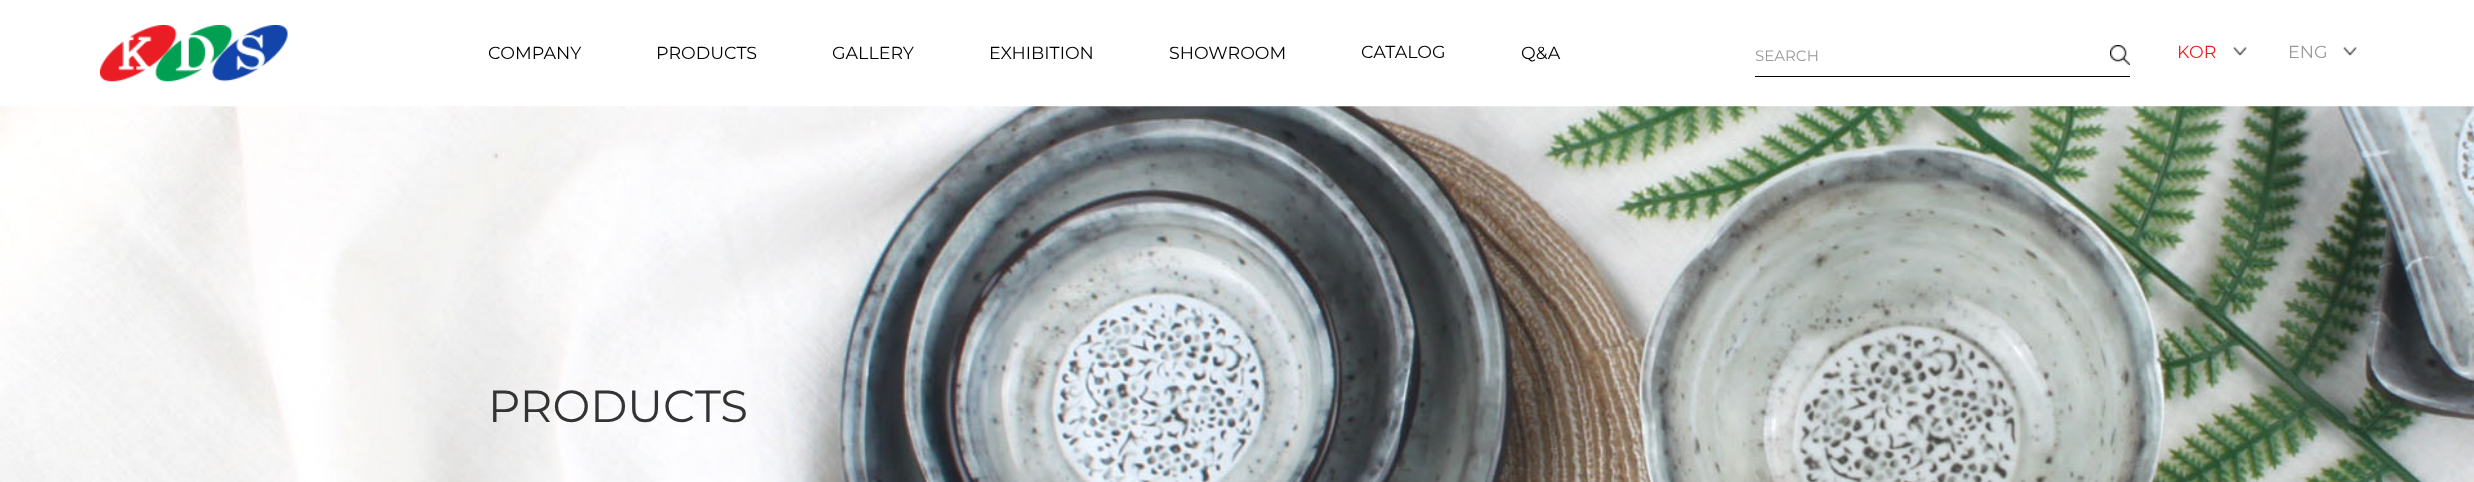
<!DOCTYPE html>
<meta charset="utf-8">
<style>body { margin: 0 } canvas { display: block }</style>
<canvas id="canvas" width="2474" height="482"></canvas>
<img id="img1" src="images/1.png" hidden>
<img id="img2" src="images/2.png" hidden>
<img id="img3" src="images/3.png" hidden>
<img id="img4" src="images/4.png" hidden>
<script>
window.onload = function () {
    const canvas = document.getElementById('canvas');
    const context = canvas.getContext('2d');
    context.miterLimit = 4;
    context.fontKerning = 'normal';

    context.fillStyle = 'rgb(255, 255, 255)';
    context.fillRect(0, 0, 2474, 482);
    context.drawImage(document.getElementById('img1'), 100, 25, 188, 57);
    context.fillStyle = 'rgb(0, 0, 0)';
    context.fillRect(1755, 76, 375, 1);
    context.drawImage(document.getElementById('img2'), 2110, 45, 20, 20);
    context.drawImage(document.getElementById('img3'), 2233, 47, 14, 9);
    context.drawImage(document.getElementById('img3'), 2343, 47, 14, 9);
    context.drawImage(document.getElementById('img4'), 0, 106, 2474, 376);
    context.font = '17.5px Montserrat';
    context.fillText('COMPANY', 488, 59);
    context.fillText('PRODUCTS', 656, 59);
    context.fillText('GALLERY', 832, 59);
    context.fillText('EXHIBITION', 989, 59);
    context.fillText('SHOWROOM', 1169, 59);
    context.fillText('CATALOG', 1361, 58);
    context.fillText('Q&A', 1521, 59);
    context.font = '15px Montserrat';
    context.fillStyle = 'rgb(153, 153, 153)';
    context.fillText('SEARCH', 1755, 61);
    context.font = '17.5px Montserrat';
    context.fillStyle = 'rgb(236, 29, 37)';
    context.fillText('KOR', 2177, 58);
    context.fillStyle = 'rgb(153, 153, 153)';
    context.fillText('ENG', 2288, 58);
    context.font = '45px Montserrat';
    context.fillStyle = 'rgb(51, 51, 51)';
    context.fillText('PRODUCTS', 488, 422);
};
</script>
